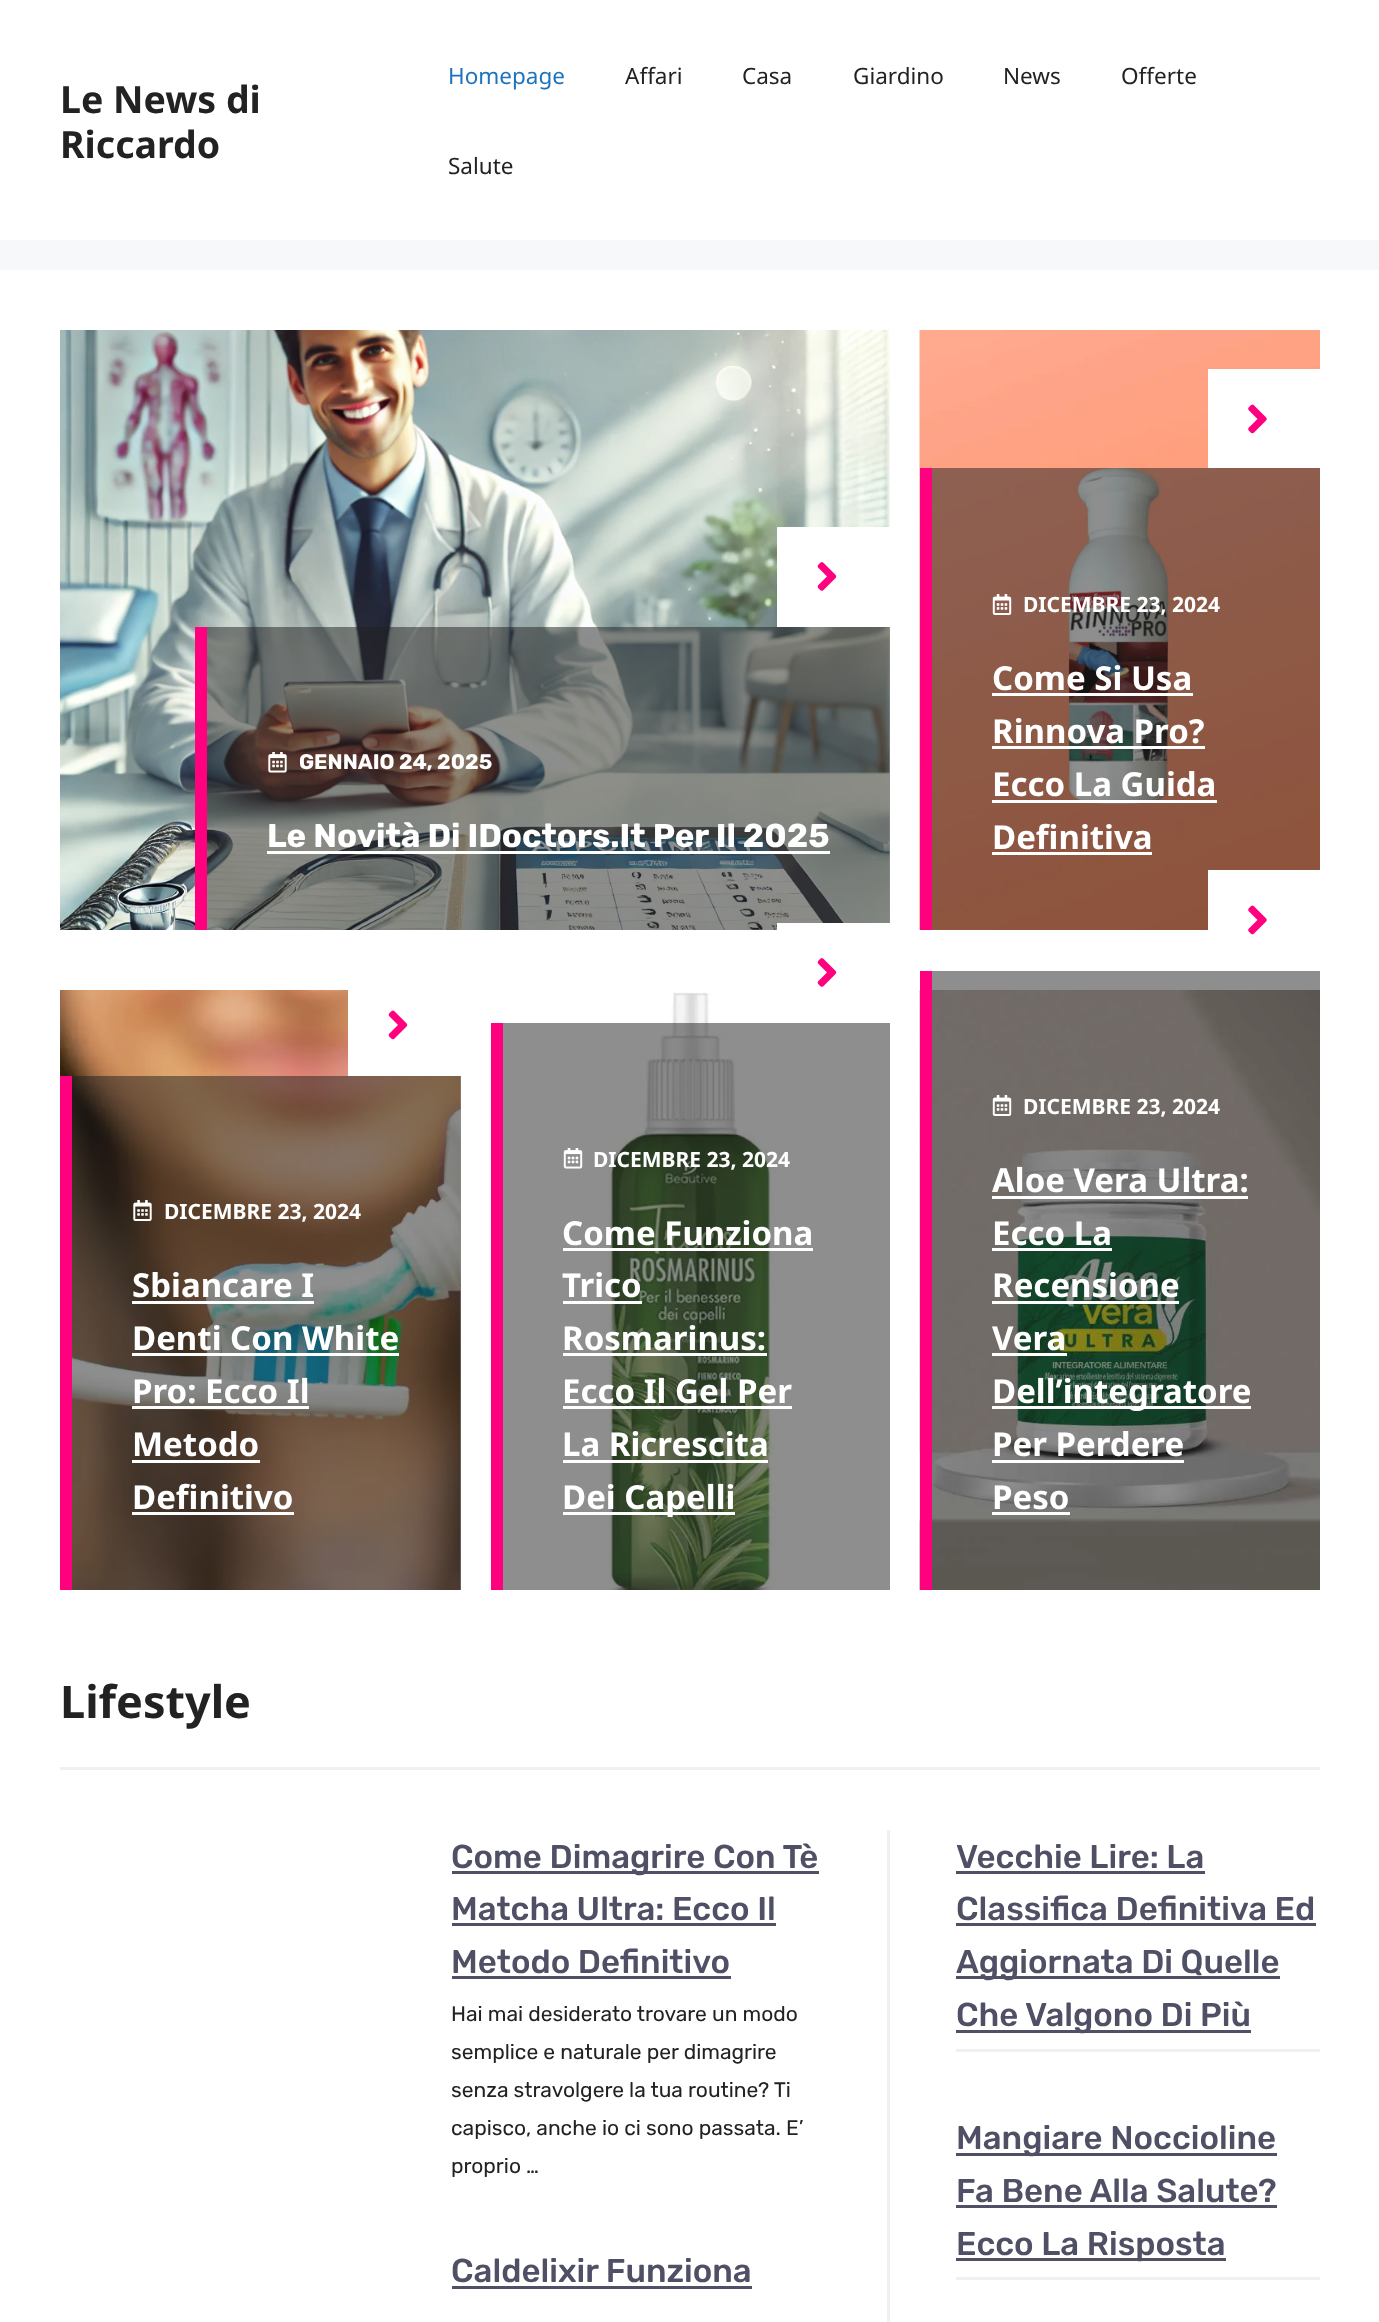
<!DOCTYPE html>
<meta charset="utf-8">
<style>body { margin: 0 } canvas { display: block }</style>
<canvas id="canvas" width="1379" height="2322"></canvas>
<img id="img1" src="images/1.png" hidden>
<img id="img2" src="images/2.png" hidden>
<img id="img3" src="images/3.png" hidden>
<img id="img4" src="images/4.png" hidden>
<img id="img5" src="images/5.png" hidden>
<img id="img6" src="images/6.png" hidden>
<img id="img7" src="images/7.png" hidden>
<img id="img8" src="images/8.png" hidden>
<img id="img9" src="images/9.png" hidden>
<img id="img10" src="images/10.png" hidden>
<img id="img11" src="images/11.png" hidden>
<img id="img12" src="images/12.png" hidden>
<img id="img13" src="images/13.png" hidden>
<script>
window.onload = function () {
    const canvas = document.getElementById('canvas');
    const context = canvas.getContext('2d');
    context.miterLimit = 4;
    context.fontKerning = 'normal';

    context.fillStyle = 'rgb(247, 248, 249)';
    context.fillRect(0, 0, 1379, 2322);
    context.fillStyle = 'rgb(255, 255, 255)';
    context.fillRect(0, 0, 1379, 240);
    context.fillRect(0, 270, 1379, 2052);
    context.fillStyle = 'rgb(142, 142, 142)';
    context.fillRect(932, 971, 388, 19);
    context.fillRect(503, 1023, 387, 567);
    context.drawImage(document.getElementById('img1'), 60, 330, 830, 600);
    context.fillStyle = 'rgb(255, 255, 255)';
    context.fillRect(777, 527, 113, 100);
    context.drawImage(document.getElementById('img2'), 817, 562, 20, 29);
    context.fillStyle = 'rgba(33, 33, 33, 0.51)';
    context.fillRect(207, 627, 683, 303);
    context.fillStyle = 'rgb(255, 0, 126)';
    context.fillRect(195, 627, 12, 303);
    context.drawImage(document.getElementById('img3'), 268, 752, 19, 21);
    context.fillStyle = 'rgb(255, 255, 255)';
    context.fillRect(267, 851, 563, 3);
    context.drawImage(document.getElementById('img4'), 919, 330, 401, 600);
    context.fillRect(1208, 369, 112, 99);
    context.drawImage(document.getElementById('img5'), 1248, 404, 19, 30);
    context.fillStyle = 'rgba(33, 33, 33, 0.51)';
    context.fillRect(932, 468, 388, 462);
    context.fillStyle = 'rgb(255, 0, 126)';
    context.fillRect(920, 468, 12, 462);
    context.drawImage(document.getElementById('img6'), 992, 594, 20, 21);
    context.fillStyle = 'rgb(255, 255, 255)';
    context.fillRect(992, 693, 201, 3);
    context.fillRect(992, 746, 213, 3);
    context.fillRect(992, 800, 225, 3);
    context.fillRect(992, 852, 160, 3);
    context.drawImage(document.getElementById('img7'), 60, 990, 401, 600);
    context.fillRect(348, 990, 113, 86);
    context.drawImage(document.getElementById('img8'), 388, 1010, 20, 30);
    context.fillStyle = 'rgba(33, 33, 33, 0.51)';
    context.fillRect(72, 1076, 389, 514);
    context.fillStyle = 'rgb(255, 0, 126)';
    context.fillRect(60, 1076, 12, 514);
    context.drawImage(document.getElementById('img9'), 133, 1200, 19, 21);
    context.fillStyle = 'rgb(255, 255, 255)';
    context.fillRect(132, 1301, 182, 3);
    context.fillRect(132, 1353, 267, 3);
    context.fillRect(132, 1406, 177, 3);
    context.fillRect(132, 1460, 128, 3);
    context.fillRect(132, 1512, 162, 3);
    context.drawImage(document.getElementById('img10'), 608, 992, 168, 598);
    context.fillRect(777, 923, 113, 7);
    context.drawImage(document.getElementById('img2'), 817, 958, 20, 29);
    context.fillStyle = 'rgb(255, 0, 126)';
    context.fillRect(491, 1023, 12, 567);
    context.drawImage(document.getElementById('img11'), 563, 1148, 20, 21);
    context.fillStyle = 'rgb(255, 255, 255)';
    context.fillRect(563, 1248, 250, 3);
    context.fillRect(563, 1301, 79, 3);
    context.fillRect(563, 1353, 204, 3);
    context.fillRect(563, 1406, 229, 3);
    context.fillRect(563, 1460, 205, 3);
    context.fillRect(563, 1512, 172, 3);
    context.drawImage(document.getElementById('img12'), 919, 990, 401, 600);
    context.fillRect(1208, 870, 112, 60);
    context.drawImage(document.getElementById('img5'), 1248, 905, 19, 30);
    context.fillStyle = 'rgb(255, 0, 126)';
    context.fillRect(920, 971, 12, 619);
    context.drawImage(document.getElementById('img13'), 992, 1095, 20, 21);
    context.fillStyle = 'rgb(255, 255, 255)';
    context.fillRect(992, 1196, 256, 3);
    context.fillRect(992, 1248, 120, 3);
    context.fillRect(992, 1301, 187, 3);
    context.fillRect(992, 1353, 75, 3);
    context.fillRect(992, 1406, 259, 3);
    context.fillRect(992, 1460, 192, 3);
    context.fillRect(992, 1512, 78, 3);
    context.fillStyle = 'rgb(240, 240, 240)';
    context.fillRect(60, 1767, 1260, 3);
    context.fillRect(887, 1830, 3, 492);
    context.fillStyle = 'rgb(79, 79, 101)';
    context.fillRect(452, 1871, 367, 3);
    context.fillRect(452, 1923, 324, 3);
    context.fillRect(452, 1976, 279, 3);
    context.fillRect(452, 2286, 300, 3);
    context.fillStyle = 'rgb(240, 240, 240)';
    context.fillRect(956, 2049, 364, 3);
    context.fillStyle = 'rgb(79, 79, 101)';
    context.fillRect(956, 1871, 249, 3);
    context.fillRect(956, 1923, 360, 3);
    context.fillRect(956, 1976, 324, 3);
    context.fillRect(956, 2030, 295, 3);
    context.fillStyle = 'rgb(240, 240, 240)';
    context.fillRect(956, 2277, 364, 3);
    context.fillStyle = 'rgb(79, 79, 101)';
    context.fillRect(956, 2153, 321, 3);
    context.fillRect(956, 2205, 321, 3);
    context.fillRect(956, 2258, 270, 3);
    context.font = 'bold 37.5px Noto Sans';
    context.fillStyle = 'rgb(34, 34, 34)';
    context.fillText('Le News di', 60, 113);
    context.fillText('Riccardo', 60, 158);
    context.font = '22.5px Noto Sans';
    context.fillStyle = 'rgb(30, 115, 190)';
    context.fillText('Homepage', 448, 84);
    context.fillStyle = 'rgb(34, 34, 34)';
    context.fillText('Affari', 625, 84);
    context.fillText('Casa', 742, 84);
    context.fillText('Giardino', 853, 84);
    context.fillText('News', 1003, 84);
    context.fillText('Offerte', 1121, 84);
    context.fillText('Salute', 448, 174);
    context.font = 'bold 21px Rubik';
    context.fillStyle = 'rgb(255, 255, 255)';
    context.fillText('GENNAIO 24, 2025', 299, 769);
    context.font = 'bold 33px Rubik';
    context.fillText('Le Novità Di IDoctors.It Per Il 2025', 267, 847);
    context.font = 'bold 21px Noto Sans';
    context.fillText('DICEMBRE 23, 2024', 1023, 612);
    context.font = 'bold 33px Noto Sans';
    context.fillText('Come Si Usa', 992, 690);
    context.fillText('Rinnova Pro?', 992, 743);
    context.fillText('Ecco La Guida', 992, 796);
    context.fillText('Definitiva', 992, 849);
    context.font = 'bold 21px Noto Sans';
    context.fillText('DICEMBRE 23, 2024', 164, 1219);
    context.font = 'bold 33px Noto Sans';
    context.fillText('Sbiancare I', 132, 1297);
    context.fillText('Denti Con White', 132, 1350);
    context.fillText('Pro: Ecco Il', 132, 1403);
    context.fillText('Metodo', 132, 1456);
    context.fillText('Definitivo', 132, 1509);
    context.font = 'bold 21px Noto Sans';
    context.fillText('DICEMBRE 23, 2024', 593, 1167);
    context.font = 'bold 33px Noto Sans';
    context.fillText('Come Funziona', 562, 1245);
    context.fillText('Trico', 562, 1297);
    context.fillText('Rosmarinus:', 562, 1350);
    context.fillText('Ecco Il Gel Per', 562, 1403);
    context.fillText('La Ricrescita', 562, 1456);
    context.fillText('Dei Capelli', 562, 1509);
    context.font = 'bold 21px Noto Sans';
    context.fillText('DICEMBRE 23, 2024', 1023, 1114);
    context.font = 'bold 33px Noto Sans';
    context.fillText('Aloe Vera Ultra:', 992, 1192);
    context.fillText('Ecco La', 992, 1245);
    context.fillText('Recensione', 992, 1297);
    context.fillText('Vera', 992, 1350);
    context.fillText('Dell’integratore', 992, 1403);
    context.fillText('Per Perdere', 992, 1456);
    context.fillText('Peso', 992, 1509);
    context.font = 'bold 45px Noto Sans';
    context.fillStyle = 'rgb(34, 34, 34)';
    context.fillText('Lifestyle', 60, 1718);
    context.font = '500 33px Rubik';
    context.fillStyle = 'rgb(79, 79, 101)';
    context.fillText('Come Dimagrire Con Tè', 451, 1868);
    context.fillText('Matcha Ultra: Ecco Il', 451, 1920);
    context.fillText('Metodo Definitivo', 451, 1973);
    context.font = '21px Rubik';
    context.fillStyle = 'rgb(34, 34, 34)';
    context.fillText('Hai mai desiderato trovare un modo', 451, 2021);
    context.fillText('semplice e naturale per dimagrire', 451, 2059);
    context.fillText('senza stravolgere la tua routine? Ti', 451, 2097);
    context.fillText('capisco, anche io ci sono passata. E’', 451, 2135);
    context.fillText('proprio …', 451, 2173);
    context.font = '500 33px Rubik';
    context.fillStyle = 'rgb(79, 79, 101)';
    context.fillText('Caldelixir Funziona', 451, 2282);
    context.fillText('Vecchie Lire: La', 956, 1868);
    context.fillText('Classifica Definitiva Ed', 956, 1920);
    context.fillText('Aggiornata Di Quelle', 956, 1973);
    context.fillText('Che Valgono Di Più', 956, 2026);
    context.fillText('Mangiare Noccioline', 956, 2149);
    context.fillText('Fa Bene Alla Salute?', 956, 2202);
    context.fillText('Ecco La Risposta', 956, 2255);
};
</script>
